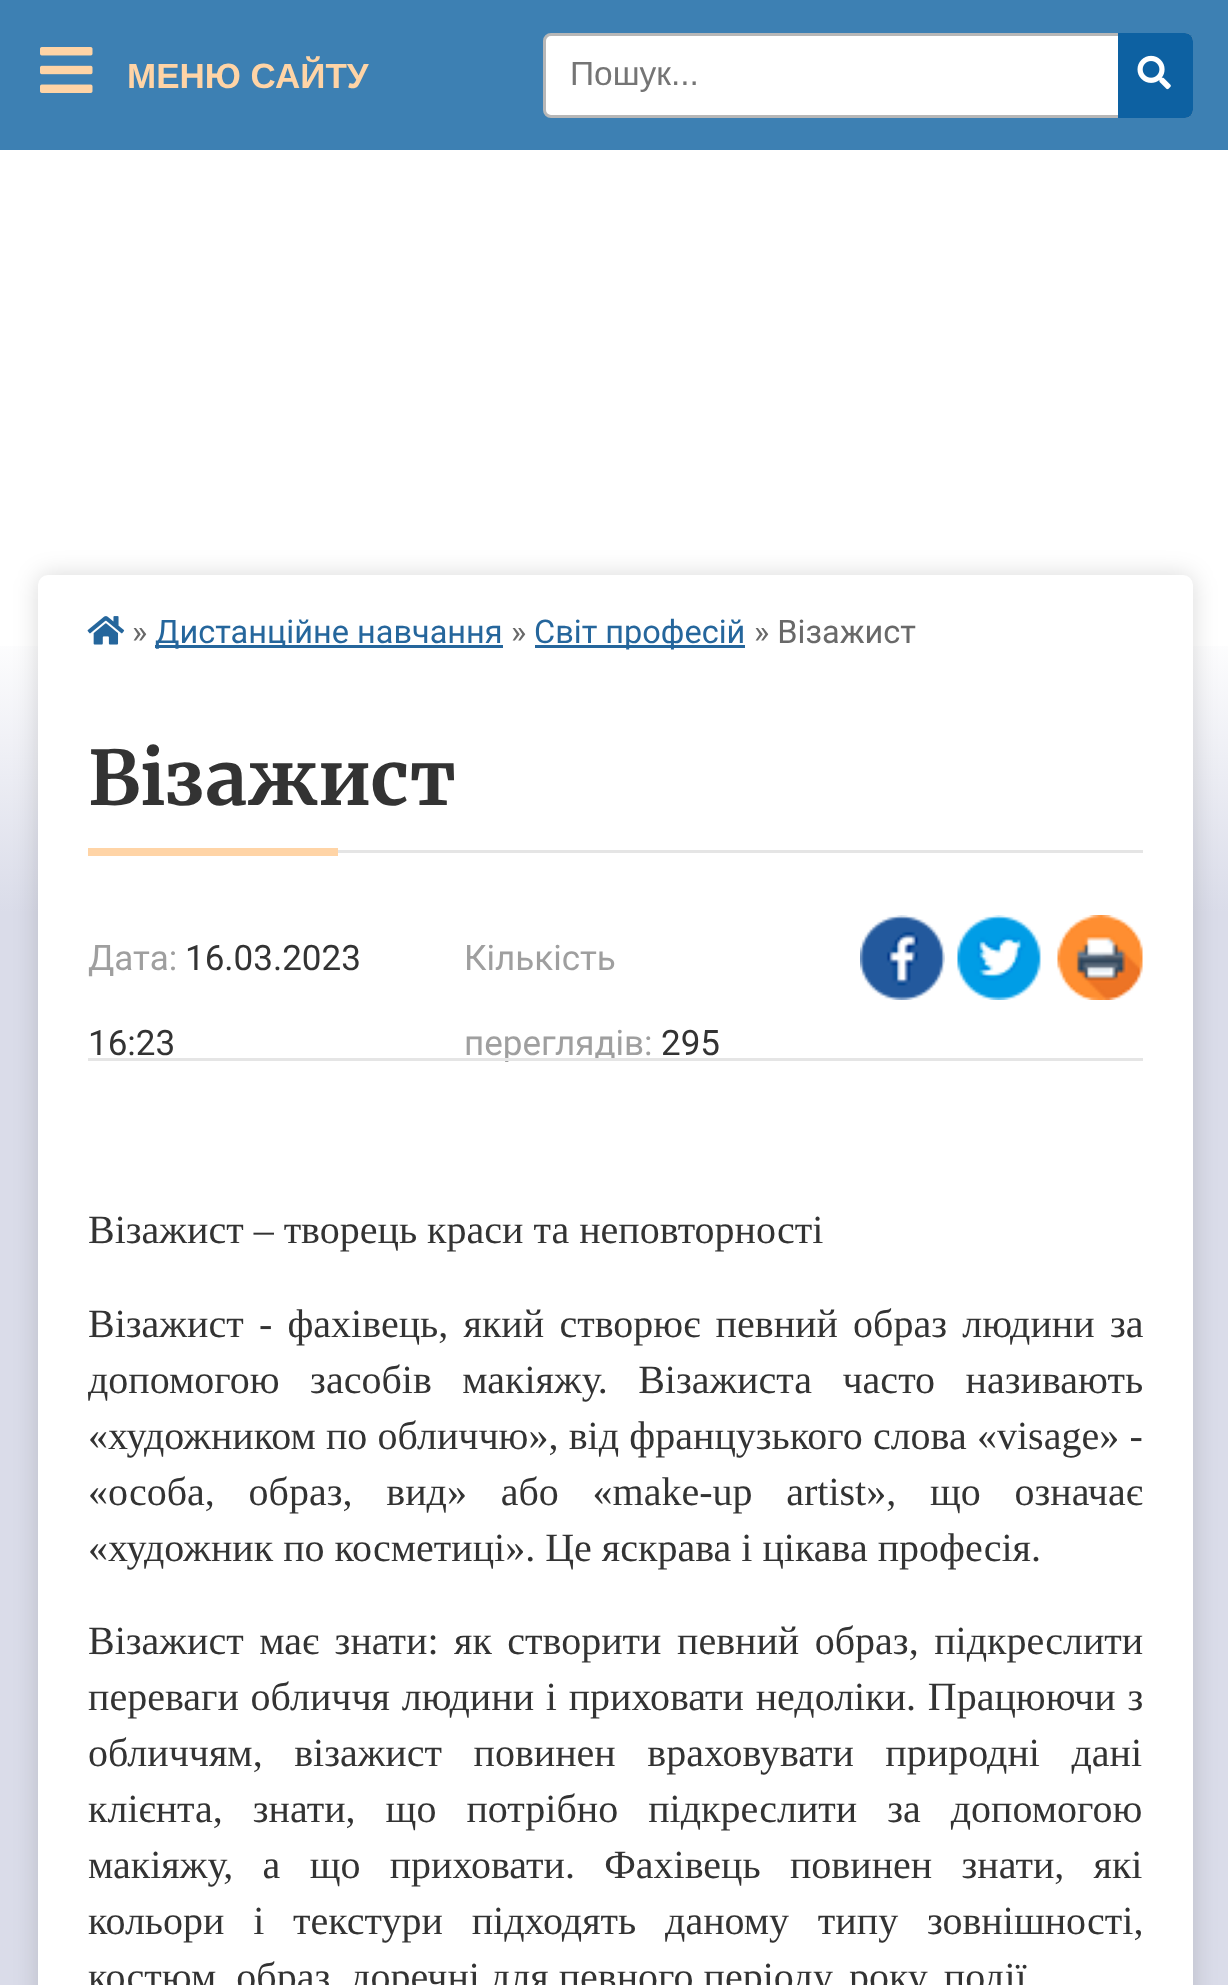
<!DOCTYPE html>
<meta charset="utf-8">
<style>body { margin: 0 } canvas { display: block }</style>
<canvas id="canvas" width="1228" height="1985"></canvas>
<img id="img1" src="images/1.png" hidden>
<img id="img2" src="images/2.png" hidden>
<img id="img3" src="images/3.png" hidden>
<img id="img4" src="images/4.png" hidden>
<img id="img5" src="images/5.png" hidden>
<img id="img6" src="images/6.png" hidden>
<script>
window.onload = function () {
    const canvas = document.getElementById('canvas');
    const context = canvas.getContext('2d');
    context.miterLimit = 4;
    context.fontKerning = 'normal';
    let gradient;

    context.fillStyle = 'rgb(255, 255, 255)';
    context.fillRect(0, 0, 1228, 1985);
    gradient = context.createLinearGradient(615, 150, 615, 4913);
    gradient.addColorStop(0.1, 'rgb(255, 255, 255)');
    gradient.addColorStop(0.16, 'rgb(218, 220, 233)');
    context.fillStyle = gradient;
    context.fillRect(0, 646, 1228, 1339);
    context.fillStyle = 'rgba(0, 0, 0, 0.15)';
    context.filter = 'blur(12.5px)';
    context.beginPath();
    context.roundRect(38, 575, 1155, 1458, 10);
    context.fill();
    context.filter = 'none';
    context.fillStyle = 'rgb(255, 255, 255)';
    context.beginPath();
    context.roundRect(38, 575, 1155, 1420, 10);
    context.fill();
    context.fillStyle = 'rgb(61, 128, 179)';
    context.fillRect(0, 0, 1228, 150);
    context.drawImage(document.getElementById('img1'), 40, 47, 53, 46);
    context.drawImage(document.getElementById('img2'), 87, 616, 38, 29);
    context.fillStyle = 'rgb(37, 102, 156)';
    context.fillRect(155, 645, 348, 3);
    context.fillRect(535, 645, 210, 3);
    context.fillStyle = 'rgb(229, 229, 229)';
    context.fillRect(338, 850, 805, 3);
    context.fillStyle = 'rgb(255, 212, 166)';
    context.fillRect(88, 848, 250, 8);
    context.drawImage(document.getElementById('img3'), 860, 915, 85, 85);
    context.drawImage(document.getElementById('img4'), 957, 915, 84, 85);
    context.drawImage(document.getElementById('img5'), 1057, 915, 86, 85);
    context.fillStyle = 'rgb(255, 255, 255)';
    context.beginPath();
    context.roundRect(544.5, 34.5, 647, 82, 6.5);
    context.fill();
    context.strokeStyle = 'rgb(183, 183, 183)';
    context.lineWidth = 3;
    context.stroke();
    context.fillStyle = 'rgb(13, 97, 162)';
    context.beginPath();
    context.roundRect(1118, 33, 75, 85, [0, 8, 8, 0]);
    context.fill();
    context.drawImage(document.getElementById('img6'), 1137, 55, 34, 35);
    context.font = 'bold 35px Liberation Sans';
    context.fillStyle = 'rgb(255, 212, 166)';
    context.fillText('МЕНЮ САЙТУ', 127, 88);
    context.font = '32.5px Roboto';
    context.fillStyle = 'rgb(105, 105, 105)';
    context.fillText('»', 132, 643);
    context.fillStyle = 'rgb(37, 102, 156)';
    context.fillText('Дистанційне навчання', 155, 643);
    context.fillStyle = 'rgb(105, 105, 105)';
    context.fillText('»', 511, 643);
    context.fillStyle = 'rgb(37, 102, 156)';
    context.fillText('Світ професій', 534, 643);
    context.fillStyle = 'rgb(105, 105, 105)';
    context.fillText('» Візажист', 754, 643);
    context.font = '300 75px Merriweather';
    context.fillStyle = 'rgb(51, 51, 51)';
    context.fillText('Візажист', 88, 805);
    context.font = '35px Roboto';
    context.fillStyle = 'rgb(159, 159, 159)';
    context.fillText('Дата:', 88, 970);
    context.fillStyle = 'rgb(51, 51, 51)';
    context.fillText('16.03.2023', 185, 970);
    context.fillText('16:23', 88, 1055);
    context.fillStyle = 'rgb(159, 159, 159)';
    context.fillText('Кількість', 464, 970);
    context.fillText('переглядів:', 464, 1055);
    context.fillStyle = 'rgb(51, 51, 51)';
    context.fillText('295', 661, 1055);
    context.fillStyle = 'rgb(229, 229, 229)';
    context.fillRect(88, 1058, 1055, 3);
    context.font = '40px Liberation Serif';
    context.fillStyle = 'rgb(51, 51, 51)';
    context.fillText('Візажист – творець краси та неповторності', 88, 1243);
    context.wordSpacing = '5.25px';
    context.fillText('Візажист - фахівець, який створює певний образ людини за', 88, 1337);
    context.wordSpacing = '20.5px';
    context.fillText('допомогою засобів макіяжу. Візажиста часто називають', 88, 1393);
    context.wordSpacing = '0.25px';
    context.fillText('«художником по обличчю», від французького слова «visage» -', 88, 1449);
    context.wordSpacing = '23.75px';
    context.fillText('«особа, образ, вид» або «make-up artist», що означає', 88, 1505);
    context.wordSpacing = '0px';
    context.fillText('«художник по косметиці». Це яскрава і цікава професія.', 88, 1561);
    context.wordSpacing = '5.5px';
    context.fillText('Візажист має знати: як створити певний образ, підкреслити', 88, 1654);
    context.wordSpacing = '1.75px';
    context.fillText('переваги обличчя людини і приховати недоліки. Працюючи з', 88, 1710);
    context.wordSpacing = '21.5px';
    context.fillText('обличчям, візажист повинен враховувати природні дані', 88, 1766);
    context.wordSpacing = '20px';
    context.fillText('клієнта, знати, що потрібно підкреслити за допомогою', 88, 1822);
    context.wordSpacing = '19.25px';
    context.fillText('макіяжу, а що приховати. Фахівець повинен знати, які', 88, 1878);
    context.wordSpacing = '18.75px';
    context.fillText('кольори і текстури підходять даному типу зовнішності,', 88, 1934);
    context.wordSpacing = '0px';
    context.fillText('костюм, образ, доречні для певного періоду, року, події', 88, 1990);
    context.font = '33.5px Liberation Sans';
    context.fillStyle = 'rgb(117, 117, 117)';
    context.fillText('Пошук...', 570, 85);
};
</script>
